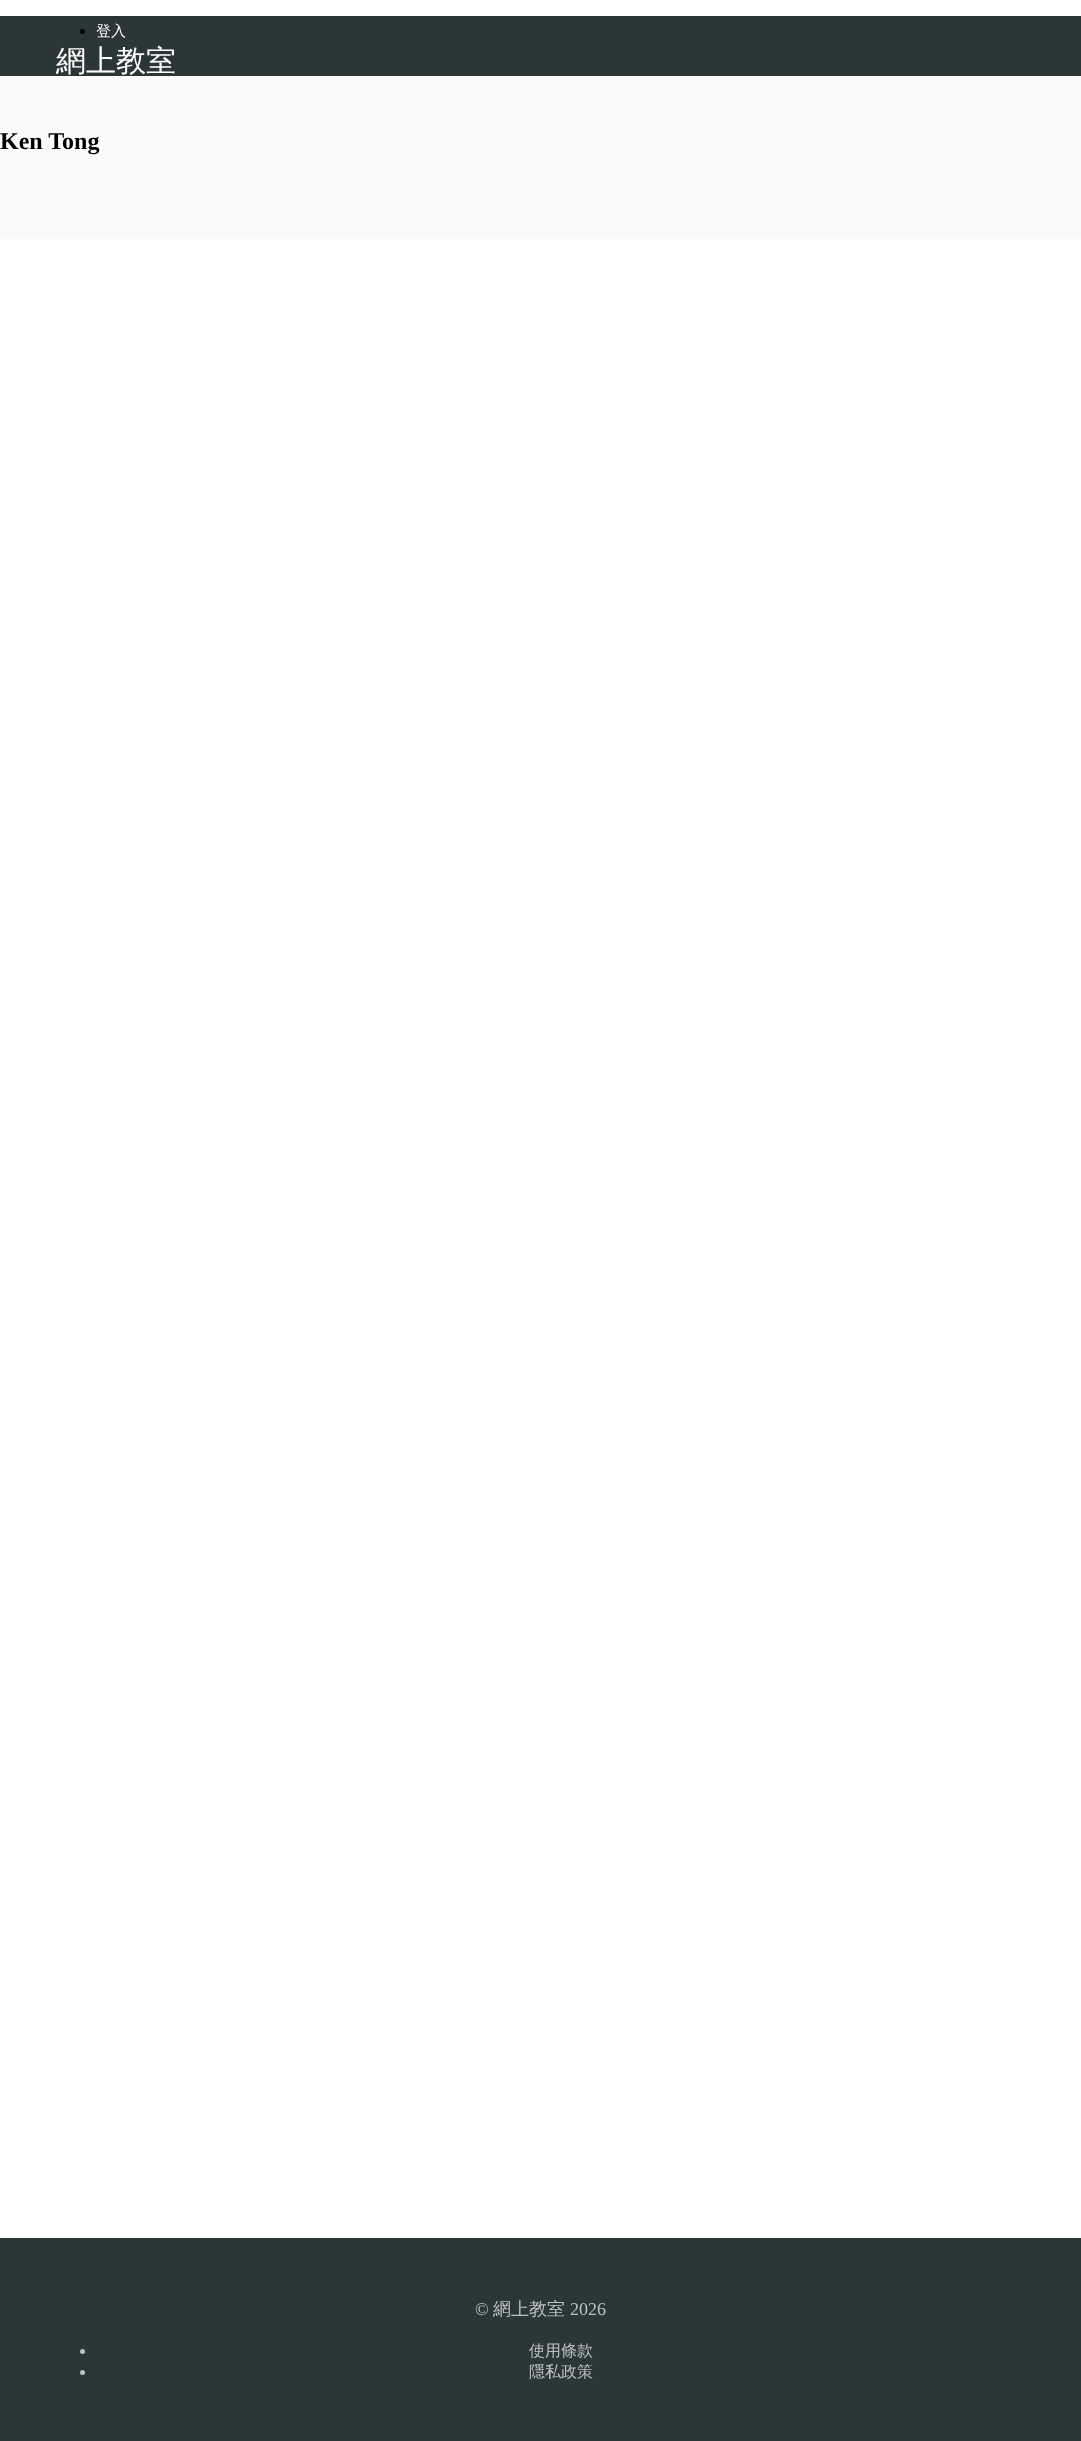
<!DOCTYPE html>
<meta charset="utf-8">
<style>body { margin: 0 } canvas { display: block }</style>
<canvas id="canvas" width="1081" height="2441"></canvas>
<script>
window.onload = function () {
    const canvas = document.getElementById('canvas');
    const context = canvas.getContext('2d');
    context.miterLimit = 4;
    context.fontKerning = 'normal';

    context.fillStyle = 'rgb(255, 255, 255)';
    context.fillRect(0, 0, 1081, 2441);
    context.fillStyle = 'rgb(43, 54, 54)';
    context.fillRect(0, 16, 1081, 60);
    context.fillStyle = 'rgb(0, 0, 0)';
    context.beginPath();
    context.arc(82.5, 31.5, 2.5, 0, 2 * Math.PI);
    context.fill();
    context.fillStyle = 'rgb(250, 250, 250)';
    context.fillRect(0, 76, 1081, 163);
    context.fillStyle = 'rgb(43, 54, 54)';
    context.fillRect(0, 2238, 1081, 203);
    context.fillStyle = 'rgb(186, 193, 199)';
    context.beginPath();
    context.arc(82.5, 2351.5, 2.5, 0, 2 * Math.PI);
    context.fill();
    context.beginPath();
    context.arc(82.5, 2372.5, 2.5, 0, 2 * Math.PI);
    context.fill();
    context.font = '500 15px WenQuanYi Zen Hei';
    context.fillStyle = 'rgb(255, 255, 255)';
    context.fillText('登入', 96, 36);
    context.font = '500 30px WenQuanYi Zen Hei';
    context.fillText('網上教室', 56, 71);
    context.font = 'bold 24px Liberation Serif';
    context.fillStyle = 'rgb(0, 0, 0)';
    context.fillText('Ken Tong', 0, 149);
    context.font = '18px Liberation Serif';
    context.fillStyle = 'rgb(186, 193, 199)';
    context.fillText('©', 475, 2315);
    context.font = '500 18px WenQuanYi Zen Hei';
    context.fillText('網上教室', 493, 2315);
    context.font = '18px Liberation Serif';
    context.fillText('2026', 570, 2315);
    context.font = '500 16px WenQuanYi Zen Hei';
    context.fillText('使用條款', 529, 2356);
    context.fillText('隱私政策', 529, 2377);
};
</script>
